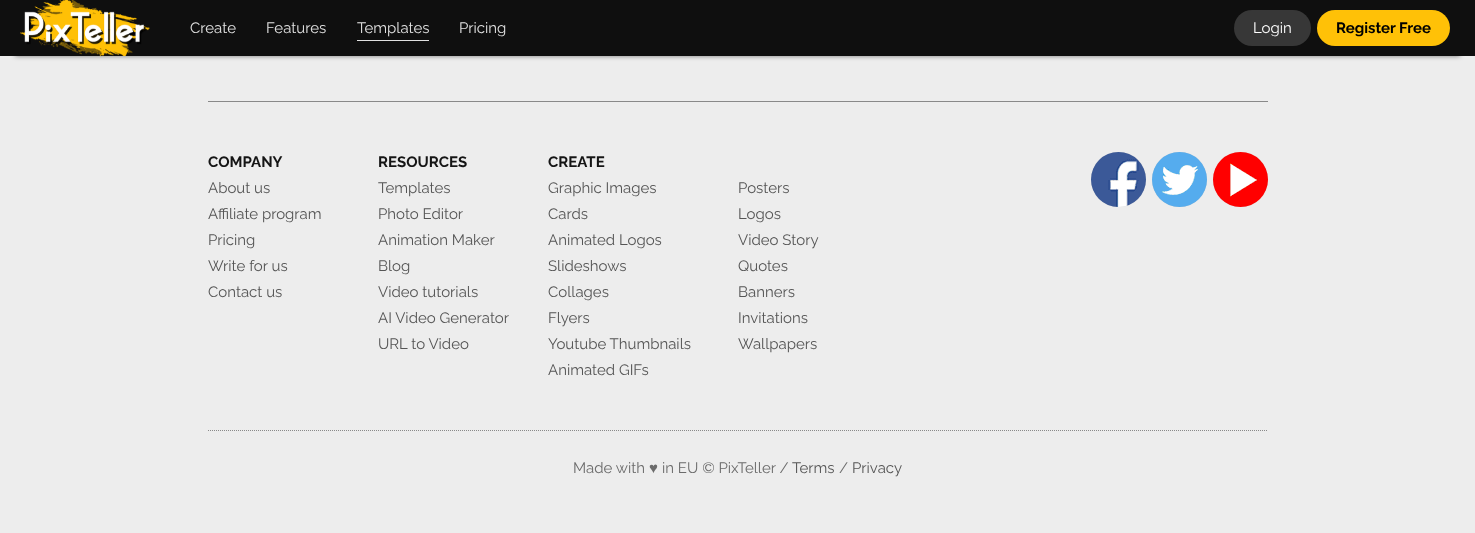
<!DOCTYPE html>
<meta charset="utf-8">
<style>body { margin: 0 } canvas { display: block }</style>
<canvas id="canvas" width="1475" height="533"></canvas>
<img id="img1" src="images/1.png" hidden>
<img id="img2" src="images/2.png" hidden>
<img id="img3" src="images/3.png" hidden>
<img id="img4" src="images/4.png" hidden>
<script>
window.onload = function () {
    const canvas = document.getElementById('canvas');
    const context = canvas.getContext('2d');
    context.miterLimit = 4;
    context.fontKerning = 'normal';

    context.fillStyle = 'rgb(237, 237, 237)';
    context.fillRect(0, 0, 1475, 533);
    context.fillStyle = 'rgba(0, 0, 0, 0.5)';
    context.filter = 'blur(2.5px)';
    context.beginPath();
    context.rect(15, 30, 1445, 26);
    context.fill();
    context.filter = 'none';
    context.fillStyle = 'rgb(15, 15, 15)';
    context.fillRect(0, 0, 1475, 56);
    context.drawImage(document.getElementById('img1'), 20, 0, 130, 56);
    context.fillStyle = 'rgb(225, 225, 225)';
    context.fillRect(357, 40, 72, 1);
    context.fillStyle = 'rgb(55, 55, 55)';
    context.beginPath();
    context.roundRect(1234, 10, 77, 36, 18);
    context.fill();
    context.fillStyle = 'rgb(255, 193, 7)';
    context.beginPath();
    context.roundRect(1317, 10, 133, 36, 18);
    context.fill();
    context.fillStyle = 'rgb(137, 137, 137)';
    context.fillRect(208, 101, 1060, 1);
    context.beginPath();
    context.moveTo(208, 430.5);
    context.lineTo(1268, 430.5);
    context.strokeStyle = 'rgb(137, 137, 137)';
    context.setLineDash([1, 1]);
    context.stroke();
    context.fillStyle = 'rgb(200, 200, 200)';
    context.beginPath();
    context.arc(1118.5, 179.5, 27.5, 0, 2 * Math.PI);
    context.fill();
    context.drawImage(document.getElementById('img2'), 1091, 152, 55, 55);
    context.beginPath();
    context.arc(1179.5, 179.5, 27.5, 0, 2 * Math.PI);
    context.fill();
    context.drawImage(document.getElementById('img3'), 1152, 152, 55, 55);
    context.beginPath();
    context.arc(1240.5, 179.5, 27.5, 0, 2 * Math.PI);
    context.fill();
    context.drawImage(document.getElementById('img4'), 1213, 152, 55, 55);
    context.font = '15px Raleway';
    context.fillStyle = 'rgb(225, 225, 225)';
    context.fillText('Create', 190, 33);
    context.fillText('Features', 266, 33);
    context.fillText('Templates', 357, 33);
    context.fillText('Pricing', 459, 33);
    context.fillStyle = 'rgb(255, 255, 255)';
    context.fillText('Login', 1253, 33);
    context.font = 'bold 15px Raleway';
    context.fillStyle = 'rgb(0, 0, 0)';
    context.fillText('Register Free', 1336, 33);
    context.fillStyle = 'rgb(21, 21, 21)';
    context.fillText('COMPANY', 208, 167);
    context.font = '15px Raleway';
    context.fillStyle = 'rgb(85, 85, 85)';
    context.fillText('About us', 208, 193);
    context.fillText('Affiliate program', 208, 219);
    context.fillText('Pricing', 208, 245);
    context.fillText('Write for us', 208, 271);
    context.fillText('Contact us', 208, 297);
    context.font = 'bold 15px Raleway';
    context.fillStyle = 'rgb(21, 21, 21)';
    context.fillText('RESOURCES', 378, 167);
    context.font = '15px Raleway';
    context.fillStyle = 'rgb(85, 85, 85)';
    context.fillText('Templates', 378, 193);
    context.fillText('Photo Editor', 378, 219);
    context.fillText('Animation Maker', 378, 245);
    context.fillText('Blog', 378, 271);
    context.fillText('Video tutorials', 378, 297);
    context.fillText('AI Video Generator', 378, 323);
    context.fillText('URL to Video', 378, 349);
    context.font = 'bold 15px Raleway';
    context.fillStyle = 'rgb(21, 21, 21)';
    context.fillText('CREATE', 548, 167);
    context.font = '15px Raleway';
    context.fillStyle = 'rgb(85, 85, 85)';
    context.fillText('Graphic Images', 548, 193);
    context.fillText('Posters', 738, 193);
    context.fillText('Cards', 548, 219);
    context.fillText('Logos', 738, 219);
    context.fillText('Animated Logos', 548, 245);
    context.fillText('Video Story', 738, 245);
    context.fillText('Slideshows', 548, 271);
    context.fillText('Quotes', 738, 271);
    context.fillText('Collages', 548, 297);
    context.fillText('Banners', 738, 297);
    context.fillText('Flyers', 548, 323);
    context.fillText('Invitations', 738, 323);
    context.fillText('Youtube Thumbnails', 548, 349);
    context.fillText('Wallpapers', 738, 349);
    context.fillText('Animated GIFs', 548, 375);
    context.fillStyle = 'rgb(107, 107, 107)';
    context.fillText('Made with', 573, 473);
    context.font = '15px Liberation Sans';
    context.fillText('♥', 649, 473);
    context.font = '15px Raleway';
    context.fillText('in EU © PixTeller /', 662, 473);
    context.fillStyle = 'rgb(85, 85, 85)';
    context.fillText('Terms', 792, 473);
    context.fillStyle = 'rgb(107, 107, 107)';
    context.fillText('/', 839, 473);
    context.fillStyle = 'rgb(85, 85, 85)';
    context.fillText('Privacy', 852, 473);
};
</script>
